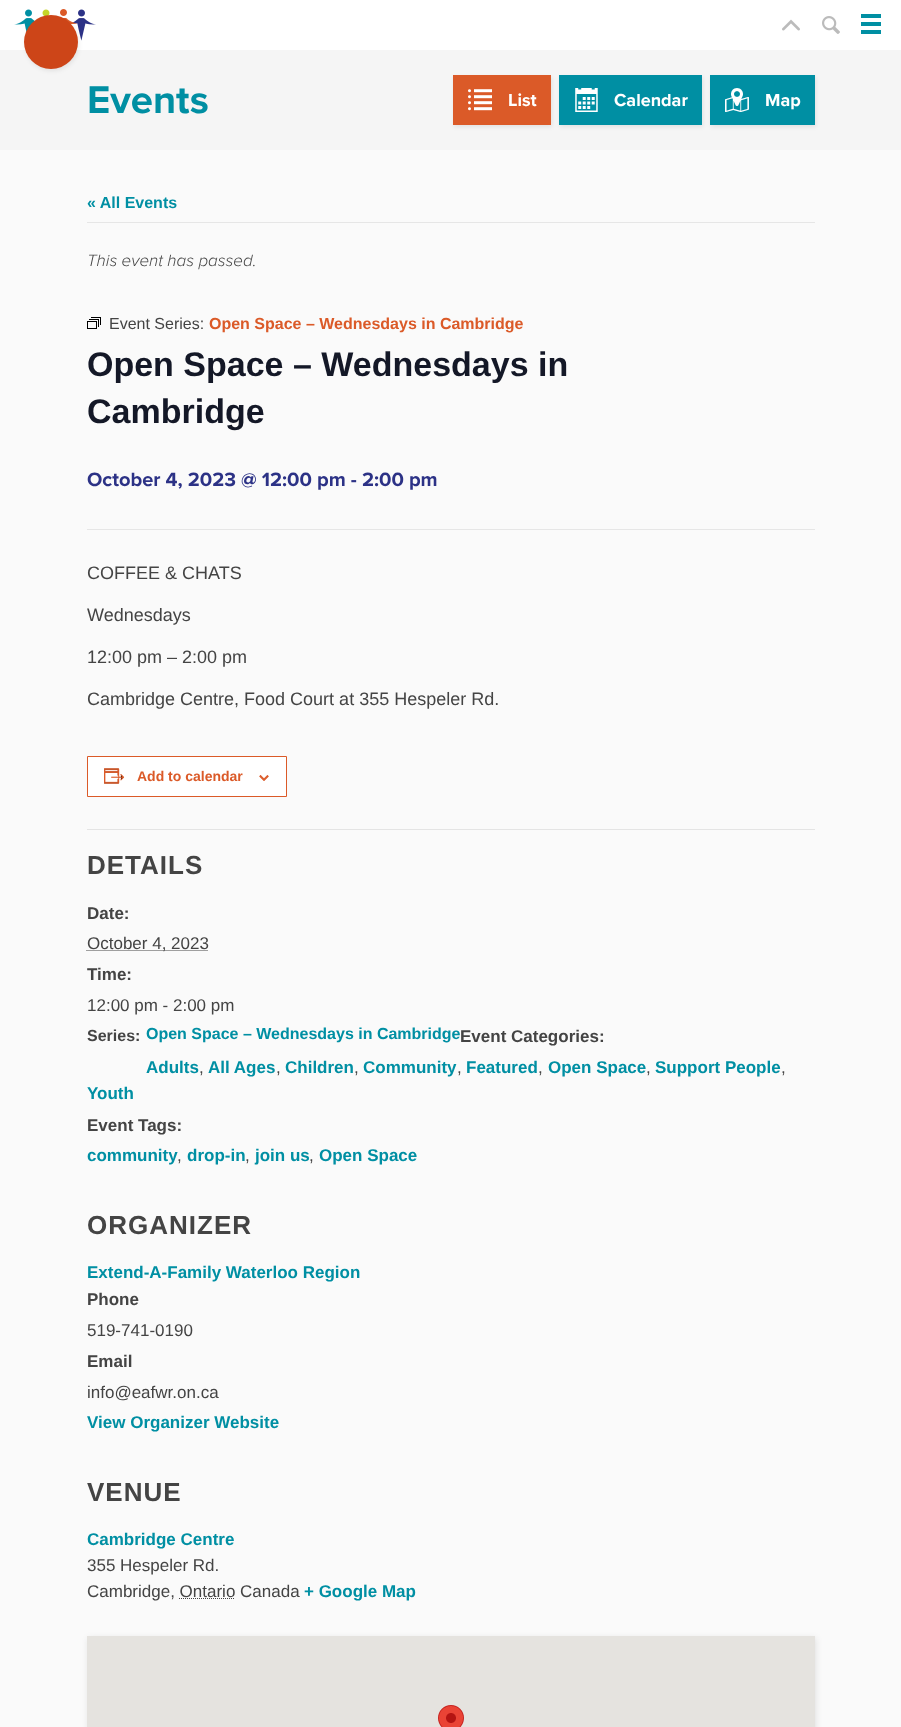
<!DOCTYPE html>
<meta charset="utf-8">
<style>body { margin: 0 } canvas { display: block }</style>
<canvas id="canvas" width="901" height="1727"></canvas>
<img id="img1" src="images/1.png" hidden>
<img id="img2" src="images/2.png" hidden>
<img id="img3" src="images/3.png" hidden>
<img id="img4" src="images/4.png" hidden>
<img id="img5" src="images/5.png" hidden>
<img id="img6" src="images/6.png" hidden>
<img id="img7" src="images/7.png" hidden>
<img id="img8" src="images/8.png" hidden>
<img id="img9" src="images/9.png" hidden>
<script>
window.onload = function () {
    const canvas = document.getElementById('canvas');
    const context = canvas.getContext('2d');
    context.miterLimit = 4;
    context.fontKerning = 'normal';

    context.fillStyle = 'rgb(255, 255, 255)';
    context.fillRect(0, 0, 901, 1727);
    context.drawImage(document.getElementById('img1'), 14, 9, 82, 32);
    context.drawImage(document.getElementById('img2'), 782, 19, 18, 12);
    context.drawImage(document.getElementById('img3'), 822, 16, 18, 18);
    context.fillStyle = 'rgb(0, 143, 163)';
    context.fillRect(861, 14, 20, 4);
    context.fillRect(861, 22, 20, 4);
    context.fillRect(861, 30, 20, 4);
    context.fillStyle = 'rgb(245, 245, 245)';
    context.fillRect(0, 50, 901, 100);
    context.fillStyle = 'rgba(0, 0, 0, 0.08)';
    context.filter = 'blur(2px)';
    context.beginPath();
    context.roundRect(25, 17, 54, 54, 27);
    context.fill();
    context.filter = 'none';
    context.fillStyle = 'rgb(205, 69, 24)';
    context.beginPath();
    context.arc(51, 42, 27, 0, 2 * Math.PI);
    context.fill();
    context.fillStyle = 'rgba(0, 0, 0, 0.08)';
    context.filter = 'blur(2px)';
    context.beginPath();
    context.rect(454, 77, 98, 50);
    context.fill();
    context.filter = 'none';
    context.fillStyle = 'rgb(219, 90, 40)';
    context.fillRect(453, 75, 98, 50);
    context.drawImage(document.getElementById('img4'), 468, 89, 24, 22);
    context.fillStyle = 'rgba(0, 0, 0, 0.08)';
    context.filter = 'blur(2px)';
    context.beginPath();
    context.rect(560, 77, 143, 50);
    context.fill();
    context.filter = 'none';
    context.fillStyle = 'rgb(0, 143, 163)';
    context.fillRect(559, 75, 143, 50);
    context.drawImage(document.getElementById('img5'), 575, 88, 23, 24);
    context.fillStyle = 'rgba(0, 0, 0, 0.08)';
    context.filter = 'blur(2px)';
    context.beginPath();
    context.rect(711, 77, 105, 50);
    context.fill();
    context.filter = 'none';
    context.fillStyle = 'rgb(0, 143, 163)';
    context.fillRect(710, 75, 105, 50);
    context.fillStyle = 'rgb(250, 250, 250)';
    context.fillRect(0, 150, 901, 1577);
    context.fillStyle = 'rgb(230, 230, 230)';
    context.fillRect(87, 222, 728, 1);
    context.drawImage(document.getElementById('img6'), 87, 317, 14, 12);
    context.fillRect(87, 529, 728, 1);
    context.fillStyle = 'rgb(255, 255, 255)';
    context.beginPath();
    context.rect(87.5, 756.5, 199, 40);
    context.fill();
    context.strokeStyle = 'rgb(219, 90, 40)';
    context.stroke();
    context.drawImage(document.getElementById('img7'), 104, 768, 21, 16);
    context.drawImage(document.getElementById('img8'), 259, 775, 10, 6);
    context.fillStyle = 'rgb(228, 228, 228)';
    context.fillRect(87, 829, 728, 1);
    context.beginPath();
    context.moveTo(86.5, 950.5);
    context.lineTo(208.5, 950.5);
    context.strokeStyle = 'rgb(68, 68, 68)';
    context.setLineDash([1, 1]);
    context.stroke();
    context.beginPath();
    context.moveTo(179, 1598.5);
    context.lineTo(235, 1598.5);
    context.stroke();
    context.fillStyle = 'rgba(0, 0, 0, 0.1)';
    context.filter = 'blur(3px)';
    context.beginPath();
    context.rect(88, 1638, 728, 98);
    context.fill();
    context.filter = 'none';
    context.fillStyle = 'rgb(229, 227, 223)';
    context.fillRect(87, 1636, 728, 91);
    context.drawImage(document.getElementById('img9'), 438, 1705, 26, 22);
    context.font = 'bold 40px Proxima Nova';
    context.fillStyle = 'rgb(0, 143, 163)';
    context.fillText('Events', 87, 113);
    context.font = 'bold 18px Proxima Nova';
    context.fillStyle = 'rgb(255, 255, 255)';
    context.fillText('List', 508, 106);
    context.fillText('Calendar', 614, 106);
    context.font = '24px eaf';
    context.fillText('0', 725, 112);
    context.font = 'bold 18px Proxima Nova';
    context.fillText('Map', 765, 106);
    context.font = 'bold 16px Liberation Sans';
    context.fillStyle = 'rgb(0, 143, 163)';
    context.fillText('« All Events', 87, 208);
    context.font = 'italic 300 17px Proxima Nova';
    context.fillStyle = 'rgb(68, 68, 68)';
    context.fillText('This event has passed.', 87, 266);
    context.font = '16px Liberation Sans';
    context.fillText('Event Series:', 109, 329);
    context.font = 'bold 16px Liberation Sans';
    context.fillStyle = 'rgb(219, 90, 40)';
    context.fillText('Open Space – Wednesdays in Cambridge', 209, 329);
    context.font = 'bold 34px Liberation Sans';
    context.fillStyle = 'rgb(20, 24, 39)';
    context.fillText('Open Space – Wednesdays in', 87, 376);
    context.fillText('Cambridge', 87, 423);
    context.font = 'bold 20px Proxima Nova';
    context.fillStyle = 'rgb(44, 50, 134)';
    context.fillText('October 4, 2023 @ 12:00 pm - 2:00 pm', 87, 486);
    context.font = '18px Liberation Sans';
    context.fillStyle = 'rgb(68, 68, 68)';
    context.fillText('COFFEE & CHATS', 87, 579);
    context.fillText('Wednesdays', 87, 621);
    context.fillText('12:00 pm – 2:00 pm', 87, 663);
    context.fillText('Cambridge Centre, Food Court at 355 Hespeler Rd.', 87, 705);
    context.font = 'bold 14px Liberation Sans';
    context.fillStyle = 'rgb(219, 90, 40)';
    context.fillText('Add to calendar', 137, 781);
    context.letterSpacing = '1px';
    context.font = 'bold 26px Liberation Sans';
    context.fillStyle = 'rgb(68, 68, 68)';
    context.fillText('DETAILS', 87, 874);
    context.letterSpacing = '0px';
    context.font = 'bold 17px Liberation Sans';
    context.fillText('Date:', 87, 919);
    context.font = '17px Liberation Sans';
    context.fillText('October 4, 2023', 87, 949);
    context.font = 'bold 17px Liberation Sans';
    context.fillText('Time:', 87, 980);
    context.font = '17px Liberation Sans';
    context.fillText('12:00 pm - 2:00 pm', 87, 1011);
    context.font = 'bold 16px Liberation Sans';
    context.fillStyle = 'rgb(0, 143, 163)';
    context.fillText('Open Space – Wednesdays in Cambridge', 146, 1039);
    context.font = 'bold 17px Liberation Sans';
    context.fillStyle = 'rgb(68, 68, 68)';
    context.fillText('Event Categories:', 460, 1042);
    context.fillStyle = 'rgb(0, 143, 163)';
    context.fillText('Adults', 146, 1073);
    context.font = '17px Liberation Sans';
    context.fillStyle = 'rgb(68, 68, 68)';
    context.fillText(',', 199, 1073);
    context.font = 'bold 17px Liberation Sans';
    context.fillStyle = 'rgb(0, 143, 163)';
    context.fillText('All Ages', 208, 1073);
    context.font = '17px Liberation Sans';
    context.fillStyle = 'rgb(68, 68, 68)';
    context.fillText(',', 276, 1073);
    context.font = 'bold 17px Liberation Sans';
    context.fillStyle = 'rgb(0, 143, 163)';
    context.fillText('Children', 285, 1073);
    context.font = '17px Liberation Sans';
    context.fillStyle = 'rgb(68, 68, 68)';
    context.fillText(',', 354, 1073);
    context.font = 'bold 17px Liberation Sans';
    context.fillStyle = 'rgb(0, 143, 163)';
    context.fillText('Community', 363, 1073);
    context.font = '17px Liberation Sans';
    context.fillStyle = 'rgb(68, 68, 68)';
    context.fillText(',', 457, 1073);
    context.font = 'bold 17px Liberation Sans';
    context.fillStyle = 'rgb(0, 143, 163)';
    context.fillText('Featured', 466, 1073);
    context.font = '17px Liberation Sans';
    context.fillStyle = 'rgb(68, 68, 68)';
    context.fillText(',', 538, 1073);
    context.font = 'bold 17px Liberation Sans';
    context.fillStyle = 'rgb(0, 143, 163)';
    context.fillText('Open Space', 548, 1073);
    context.font = '17px Liberation Sans';
    context.fillStyle = 'rgb(68, 68, 68)';
    context.fillText(',', 646, 1073);
    context.font = 'bold 17px Liberation Sans';
    context.fillStyle = 'rgb(0, 143, 163)';
    context.fillText('Support People', 655, 1073);
    context.font = '17px Liberation Sans';
    context.fillStyle = 'rgb(68, 68, 68)';
    context.fillText(',', 781, 1073);
    context.font = 'bold 17px Liberation Sans';
    context.fillStyle = 'rgb(0, 143, 163)';
    context.fillText('Youth', 87, 1099);
    context.font = 'bold 16px Liberation Sans';
    context.fillStyle = 'rgb(68, 68, 68)';
    context.fillText('Series:', 87, 1041);
    context.font = 'bold 17px Liberation Sans';
    context.fillText('Event Tags:', 87, 1131);
    context.fillStyle = 'rgb(0, 143, 163)';
    context.fillText('community', 87, 1161);
    context.font = '17px Liberation Sans';
    context.fillStyle = 'rgb(68, 68, 68)';
    context.fillText(',', 177, 1161);
    context.font = 'bold 17px Liberation Sans';
    context.fillStyle = 'rgb(0, 143, 163)';
    context.fillText('drop-in', 187, 1161);
    context.font = '17px Liberation Sans';
    context.fillStyle = 'rgb(68, 68, 68)';
    context.fillText(',', 245, 1161);
    context.font = 'bold 17px Liberation Sans';
    context.fillStyle = 'rgb(0, 143, 163)';
    context.fillText('join us', 255, 1161);
    context.font = '17px Liberation Sans';
    context.fillStyle = 'rgb(68, 68, 68)';
    context.fillText(',', 309, 1161);
    context.font = 'bold 17px Liberation Sans';
    context.fillStyle = 'rgb(0, 143, 163)';
    context.fillText('Open Space', 319, 1161);
    context.letterSpacing = '1px';
    context.font = 'bold 26px Liberation Sans';
    context.fillStyle = 'rgb(68, 68, 68)';
    context.fillText('ORGANIZER', 87, 1234);
    context.letterSpacing = '0px';
    context.font = 'bold 17px Liberation Sans';
    context.fillStyle = 'rgb(0, 143, 163)';
    context.fillText('Extend-A-Family Waterloo Region', 87, 1278);
    context.fillStyle = 'rgb(68, 68, 68)';
    context.fillText('Phone', 87, 1305);
    context.font = '17px Liberation Sans';
    context.fillText('519-741-0190', 87, 1336);
    context.font = 'bold 17px Liberation Sans';
    context.fillText('Email', 87, 1367);
    context.font = '17px Liberation Sans';
    context.fillText('info@eafwr.on.ca', 87, 1398);
    context.font = 'bold 17px Liberation Sans';
    context.fillStyle = 'rgb(0, 143, 163)';
    context.fillText('View Organizer Website', 87, 1428);
    context.letterSpacing = '1px';
    context.font = 'bold 26px Liberation Sans';
    context.fillStyle = 'rgb(68, 68, 68)';
    context.fillText('VENUE', 87, 1501);
    context.letterSpacing = '0px';
    context.font = 'bold 17px Liberation Sans';
    context.fillStyle = 'rgb(0, 143, 163)';
    context.fillText('Cambridge Centre', 87, 1545);
    context.font = '17px Liberation Sans';
    context.fillStyle = 'rgb(68, 68, 68)';
    context.fillText('355 Hespeler Rd.', 87, 1571);
    context.fillText('Cambridge, Ontario Canada', 87, 1597);
    context.font = 'bold 17px Liberation Sans';
    context.fillStyle = 'rgb(0, 143, 163)';
    context.fillText('+ Google Map', 304, 1597);
};
</script>
